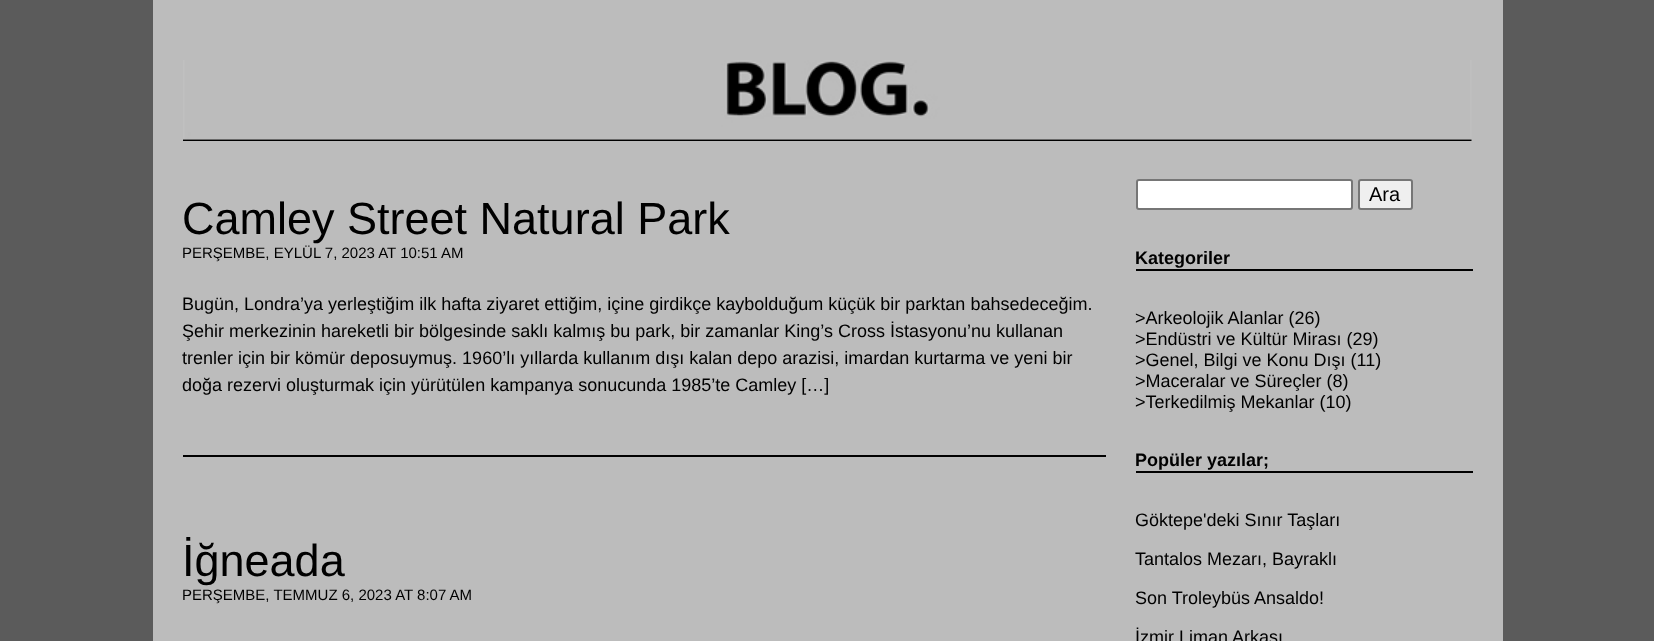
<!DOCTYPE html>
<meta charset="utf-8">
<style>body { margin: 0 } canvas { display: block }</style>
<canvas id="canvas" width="1654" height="641"></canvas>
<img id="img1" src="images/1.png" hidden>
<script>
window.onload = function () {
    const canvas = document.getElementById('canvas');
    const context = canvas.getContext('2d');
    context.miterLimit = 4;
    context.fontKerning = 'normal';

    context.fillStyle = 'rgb(91, 91, 91)';
    context.fillRect(0, 0, 1654, 641);
    context.fillStyle = 'rgb(188, 188, 188)';
    context.fillRect(153, 0, 1350, 641);
    context.drawImage(document.getElementById('img1'), 183, 60, 1289, 81);
    context.fillStyle = 'rgb(0, 0, 0)';
    context.fillRect(183, 455, 923, 2);
    context.fillStyle = 'rgb(255, 255, 255)';
    context.beginPath();
    context.roundRect(1137, 180, 215, 29, 2);
    context.fill();
    context.strokeStyle = 'rgb(118, 118, 118)';
    context.lineWidth = 2;
    context.stroke();
    context.fillStyle = 'rgb(239, 239, 239)';
    context.beginPath();
    context.roundRect(1359, 180, 53, 29, 2);
    context.fill();
    context.stroke();
    context.fillStyle = 'rgb(0, 0, 0)';
    context.fillRect(1136, 269, 337, 2);
    context.fillRect(1136, 471, 337, 2);
    context.font = '45px Liberation Sans';
    context.fillText('Camley Street Natural Park', 182, 234);
    context.font = '15px Liberation Sans';
    context.fillText('PERŞEMBE, EYLÜL 7, 2023 AT 10:51 AM', 182, 258);
    context.font = '18px Liberation Sans';
    context.fillText('Bugün, Londra’ya yerleştiğim ilk hafta ziyaret ettiğim, içine girdikçe kaybolduğum küçük bir parktan bahsedeceğim.', 182, 310);
    context.fillText('Şehir merkezinin hareketli bir bölgesinde saklı kalmış bu park, bir zamanlar King’s Cross İstasyonu’nu kullanan', 182, 337);
    context.fillText('trenler için bir kömür deposuymuş. 1960’lı yıllarda kullanım dışı kalan depo arazisi, imardan kurtarma ve yeni bir', 182, 364);
    context.fillText('doğa rezervi oluşturmak için yürütülen kampanya sonucunda 1985’te Camley […]', 182, 391);
    context.font = '45px Liberation Sans';
    context.fillText('İğneada', 182, 576);
    context.font = '15px Liberation Sans';
    context.fillText('PERŞEMBE, TEMMUZ 6, 2023 AT 8:07 AM', 182, 600);
    context.font = '20px Liberation Sans';
    context.fillText('Ara', 1369, 201);
    context.font = 'bold 18px Liberation Sans';
    context.fillText('Kategoriler', 1135, 264);
    context.font = '18px Liberation Sans';
    context.fillText('>Arkeolojik Alanlar (26)', 1135, 324);
    context.fillText('>Endüstri ve Kültür Mirası (29)', 1135, 345);
    context.fillText('>Genel, Bilgi ve Konu Dışı (11)', 1135, 366);
    context.fillText('>Maceralar ve Süreçler (8)', 1135, 387);
    context.fillText('>Terkedilmiş Mekanlar (10)', 1135, 408);
    context.font = 'bold 18px Liberation Sans';
    context.fillText('Popüler yazılar;', 1135, 466);
    context.font = '18px Liberation Sans';
    context.fillText('Göktepe\'deki Sınır Taşları', 1135, 526);
    context.fillText('Tantalos Mezarı, Bayraklı', 1135, 565);
    context.fillText('Son Troleybüs Ansaldo!', 1135, 604);
    context.fillText('İzmir Liman Arkası', 1135, 643);
};
</script>
